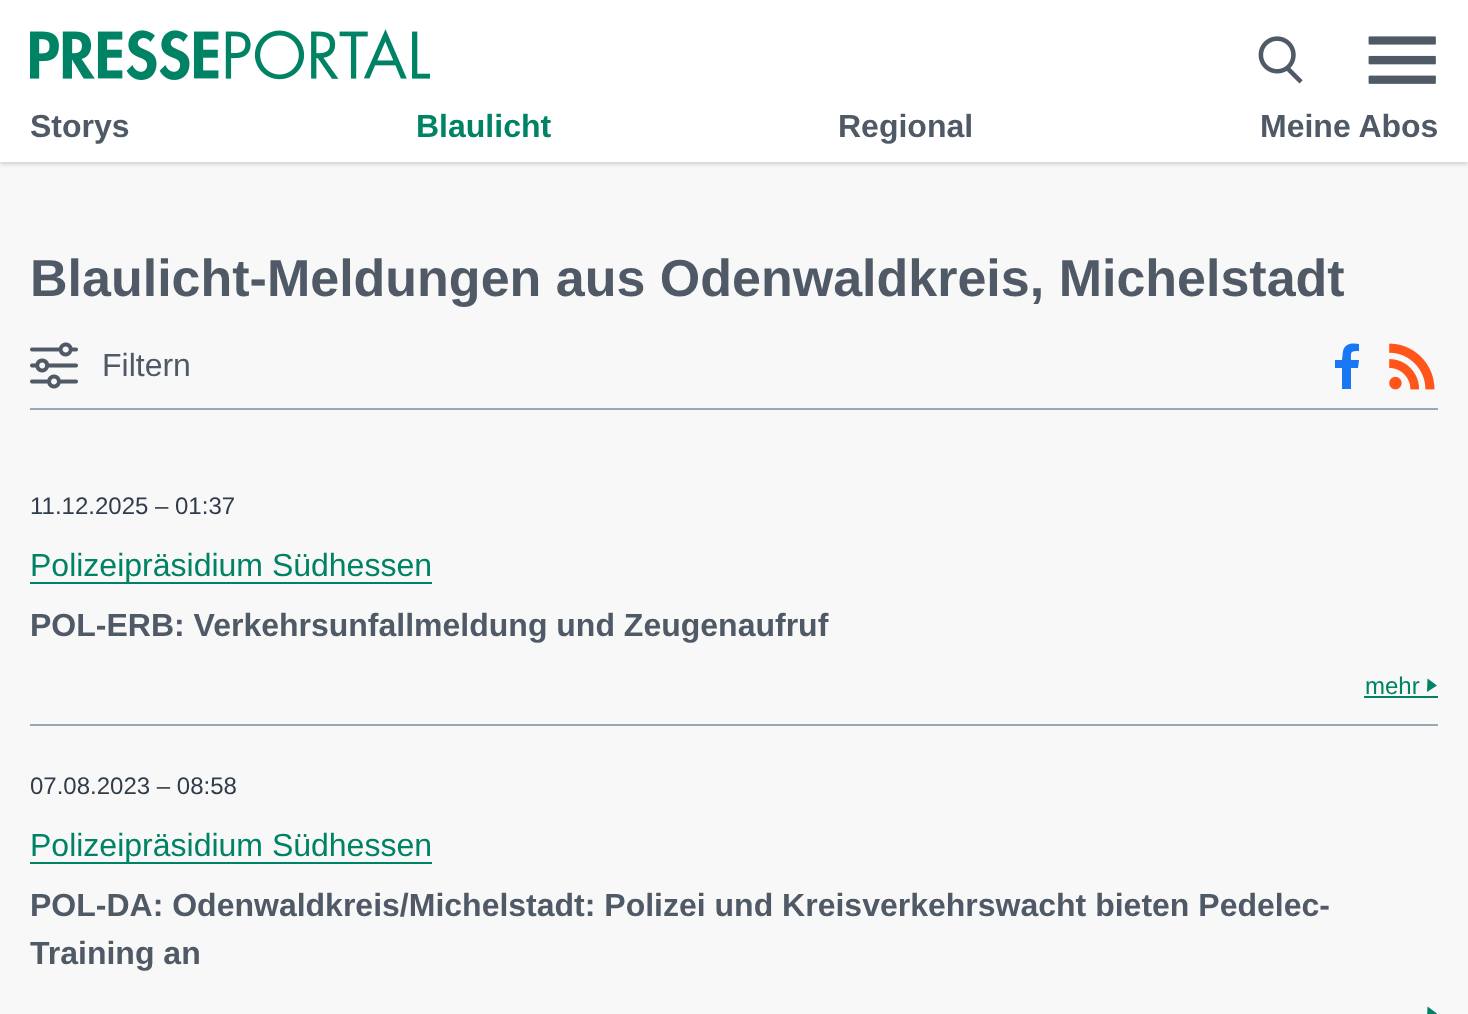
<!DOCTYPE html>
<meta charset="utf-8">
<style>body { margin: 0 } canvas { display: block }</style>
<canvas id="canvas" width="1468" height="1014"></canvas>
<img id="img1" src="images/1.png" hidden>
<img id="img2" src="images/2.png" hidden>
<img id="img3" src="images/3.png" hidden>
<img id="img4" src="images/4.png" hidden>
<img id="img5" src="images/5.png" hidden>
<script>
window.onload = function () {
    const canvas = document.getElementById('canvas');
    const context = canvas.getContext('2d');
    context.miterLimit = 4;
    context.fontKerning = 'normal';

    context.fillStyle = 'rgb(248, 248, 248)';
    context.fillRect(0, 0, 1468, 1014);
    context.fillStyle = 'rgba(79, 90, 102, 0.16)';
    context.filter = 'blur(2px)';
    context.beginPath();
    context.rect(0, 2, 1468, 162);
    context.fill();
    context.filter = 'none';
    context.fillStyle = 'rgba(79, 90, 102, 0.1)';
    context.filter = 'blur(2px)';
    context.beginPath();
    context.rect(0, 2, 1468, 162);
    context.fill();
    context.filter = 'none';
    context.fillStyle = 'rgb(255, 255, 255)';
    context.fillRect(0, 0, 1468, 162);
    context.drawImage(document.getElementById('img1'), 30, 29, 400, 51);
    context.drawImage(document.getElementById('img2'), 1258, 36, 45, 48);
    context.drawImage(document.getElementById('img3'), 1368, 36, 68, 48);
    context.fillStyle = 'rgb(153, 169, 178)';
    context.fillRect(30, 408, 1408, 2);
    context.drawImage(document.getElementById('img4'), 30, 342, 48, 47);
    context.fillStyle = 'rgb(24, 119, 242)';
    context.beginPath();
    context.moveTo(1342, 389);
    context.lineTo(1342, 368);
    context.lineTo(1335, 368);
    context.lineTo(1335, 360);
    context.lineTo(1342, 360);
    context.lineTo(1343, 351);
    context.bezierCurveTo(1345, 343, 1353, 343, 1359, 344);
    context.lineTo(1359, 351);
    context.bezierCurveTo(1350, 351, 1351, 352, 1351, 360);
    context.lineTo(1359, 360);
    context.lineTo(1358, 368);
    context.lineTo(1351, 368);
    context.lineTo(1351, 389);
    context.closePath();
    context.fill();
    context.drawImage(document.getElementById('img5'), 1389, 343, 46, 47);
    context.fillStyle = 'rgb(0, 130, 100)';
    context.fillRect(30, 582, 402, 2);
    context.fillRect(1364, 696, 74, 2);
    context.beginPath();
    context.moveTo(1427, 692);
    context.lineTo(1427.5, 678.5);
    context.lineTo(1437, 685.5);
    context.closePath();
    context.fill();
    context.fillStyle = 'rgb(153, 169, 178)';
    context.fillRect(30, 724, 1408, 2);
    context.fillStyle = 'rgb(0, 130, 100)';
    context.fillRect(30, 862, 402, 2);
    context.beginPath();
    context.moveTo(1427, 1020);
    context.lineTo(1427.5, 1006.5);
    context.lineTo(1437, 1013.5);
    context.closePath();
    context.fill();
    context.font = 'bold 32px Liberation Sans';
    context.fillStyle = 'rgb(79, 90, 102)';
    context.fillText('Storys', 30, 137);
    context.fillStyle = 'rgb(0, 130, 100)';
    context.fillText('Blaulicht', 416, 137);
    context.fillStyle = 'rgb(79, 90, 102)';
    context.fillText('Regional', 838, 137);
    context.fillText('Meine Abos', 1260, 137);
    context.font = 'bold 52px Liberation Sans';
    context.fillText('Blaulicht-Meldungen aus Odenwaldkreis, Michelstadt', 30, 296);
    context.font = '32px Liberation Sans';
    context.fillText('Filtern', 102, 376);
    context.font = '24px Liberation Sans';
    context.fillStyle = 'rgb(48, 60, 73)';
    context.fillText('11.12.2025 – 01:37', 30, 514);
    context.font = '32px Liberation Sans';
    context.fillStyle = 'rgb(0, 130, 100)';
    context.fillText('Polizeipräsidium Südhessen', 30, 576);
    context.font = 'bold 32px Liberation Sans';
    context.fillStyle = 'rgb(79, 90, 102)';
    context.fillText('POL-ERB: Verkehrsunfallmeldung und Zeugenaufruf', 30, 636);
    context.font = '24px Liberation Sans';
    context.fillStyle = 'rgb(0, 130, 100)';
    context.fillText('mehr', 1365, 694);
    context.fillStyle = 'rgb(48, 60, 73)';
    context.fillText('07.08.2023 – 08:58', 30, 794);
    context.font = '32px Liberation Sans';
    context.fillStyle = 'rgb(0, 130, 100)';
    context.fillText('Polizeipräsidium Südhessen', 30, 856);
    context.font = 'bold 32px Liberation Sans';
    context.fillStyle = 'rgb(79, 90, 102)';
    context.fillText('POL-DA: Odenwaldkreis/Michelstadt: Polizei und Kreisverkehrswacht bieten Pedelec-', 30, 916);
    context.fillText('Training an', 30, 964);
};
</script>
